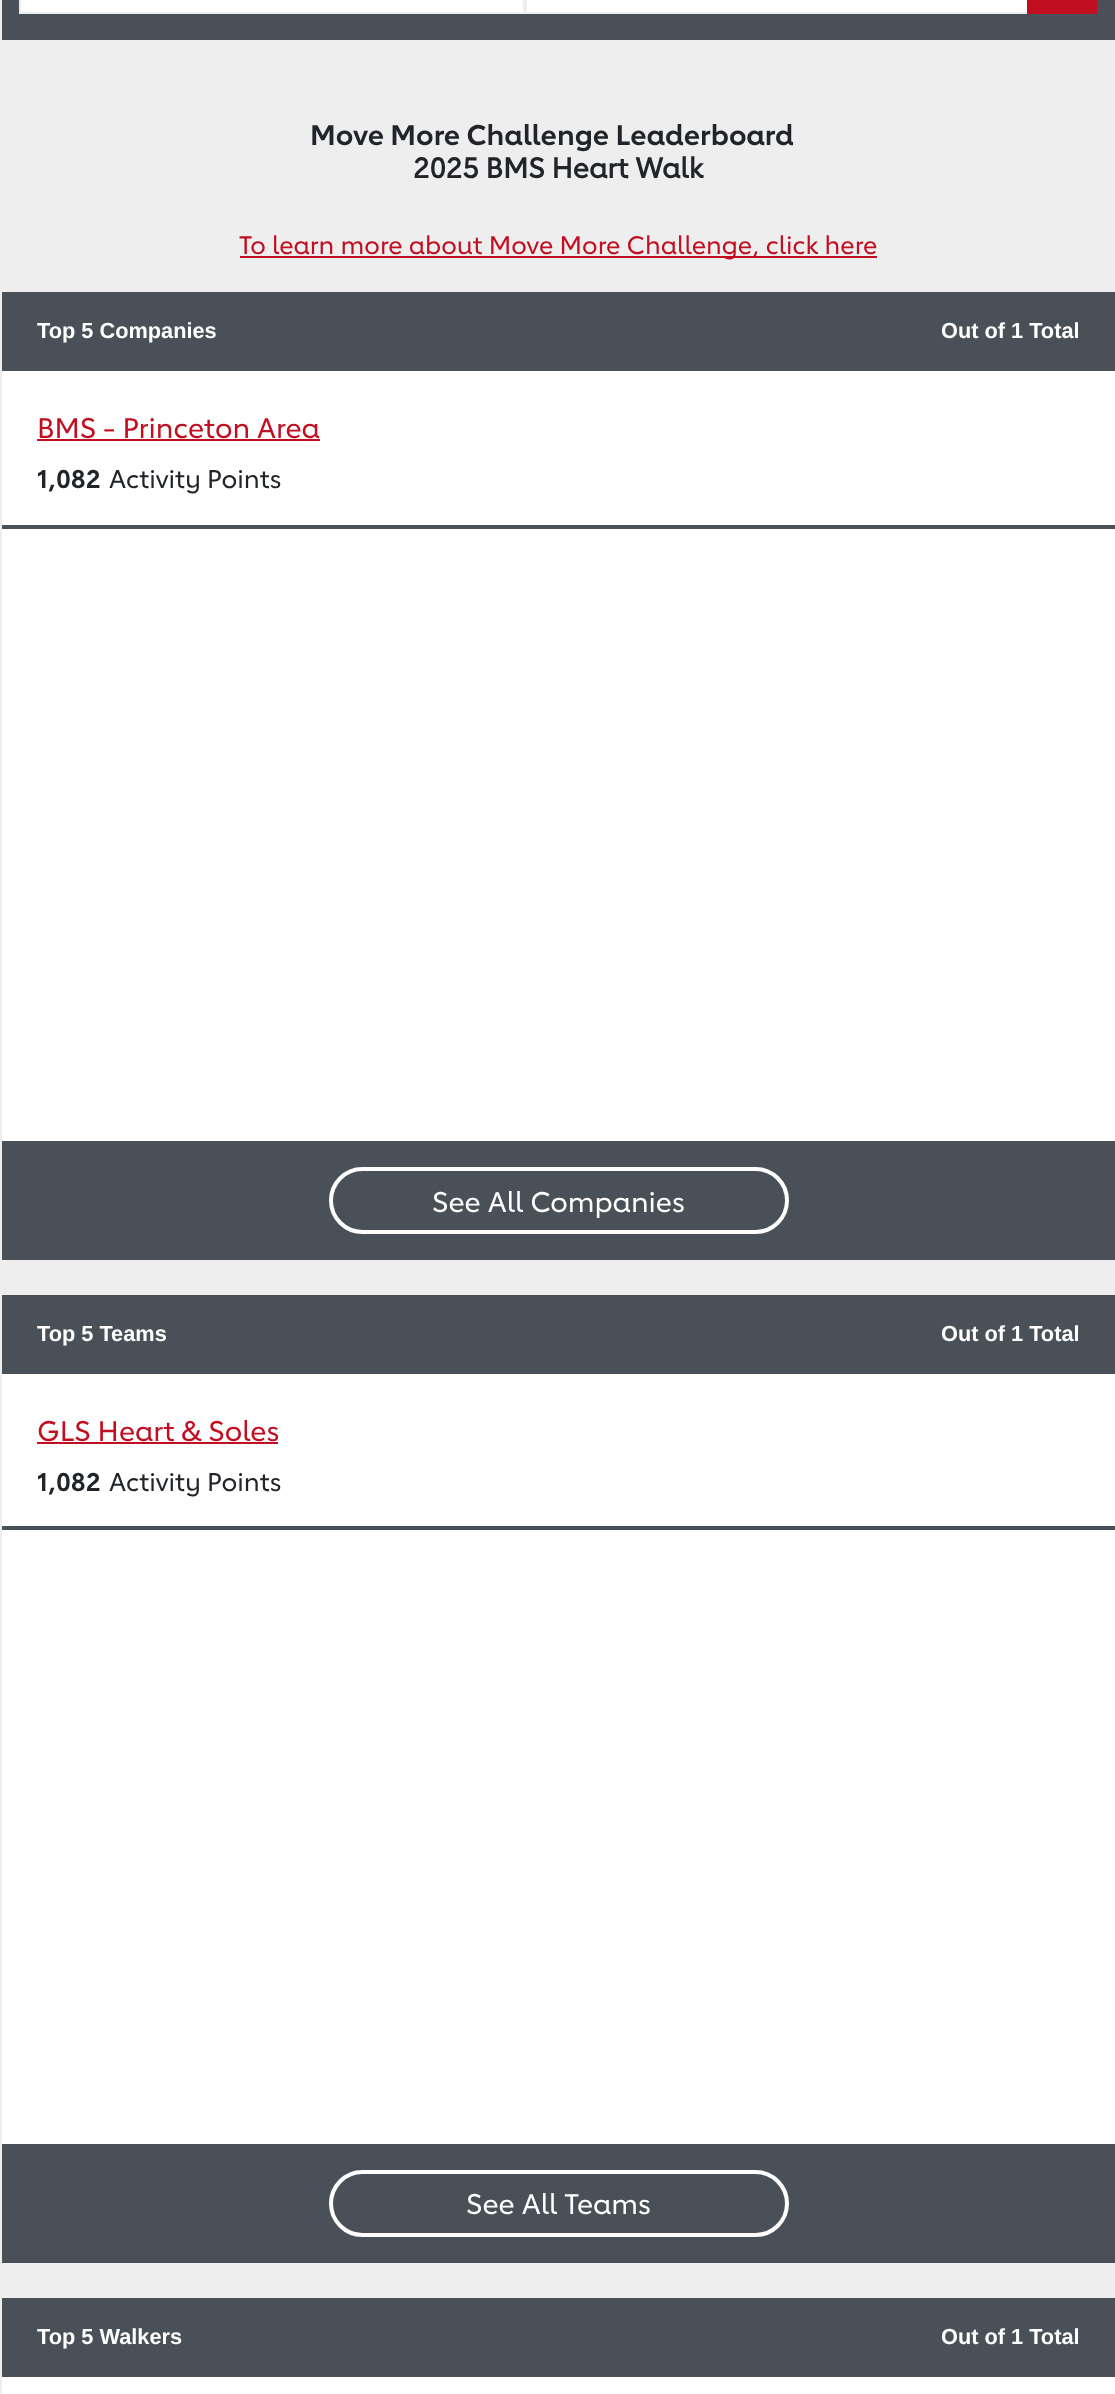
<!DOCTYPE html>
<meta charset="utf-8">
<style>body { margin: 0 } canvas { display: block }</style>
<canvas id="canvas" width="1115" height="2394"></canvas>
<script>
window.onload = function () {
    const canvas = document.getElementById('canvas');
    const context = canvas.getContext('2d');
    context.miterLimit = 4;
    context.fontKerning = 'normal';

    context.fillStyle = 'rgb(238, 238, 238)';
    context.fillRect(0, 0, 1115, 2394);
    context.fillStyle = 'rgb(73, 80, 87)';
    context.fillRect(2, 0, 1113, 40);
    context.fillStyle = 'rgb(255, 255, 255)';
    context.beginPath();
    context.rect(20, -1, 504, 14);
    context.fill();
    context.strokeStyle = 'rgb(238, 238, 238)';
    context.lineWidth = 2;
    context.stroke();
    context.beginPath();
    context.rect(526, -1, 502, 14);
    context.fill();
    context.stroke();
    context.fillStyle = 'rgb(193, 14, 33)';
    context.fillRect(1027, 0, 70, 14);
    context.fillRect(240, 256, 637, 2);
    context.fillStyle = 'rgb(255, 255, 255)';
    context.fillRect(2, 371, 1113, 770);
    context.fillStyle = 'rgb(73, 80, 87)';
    context.fillRect(2, 292, 1113, 79);
    context.fillRect(2, 525, 1113, 4);
    context.fillStyle = 'rgb(193, 14, 33)';
    context.fillRect(37, 439, 283, 2);
    context.fillStyle = 'rgb(73, 80, 87)';
    context.fillRect(2, 1141, 1113, 119);
    context.beginPath();
    context.roundRect(331, 1169, 456, 63, 31.5);
    context.strokeStyle = 'rgb(255, 255, 255)';
    context.lineWidth = 4;
    context.stroke();
    context.fillStyle = 'rgb(255, 255, 255)';
    context.fillRect(2, 1374, 1113, 770);
    context.fillStyle = 'rgb(73, 80, 87)';
    context.fillRect(2, 1295, 1113, 79);
    context.fillRect(2, 1526, 1113, 4);
    context.fillStyle = 'rgb(193, 14, 33)';
    context.fillRect(37, 1442, 241, 2);
    context.fillStyle = 'rgb(73, 80, 87)';
    context.fillRect(2, 2144, 1113, 119);
    context.beginPath();
    context.roundRect(331, 2172, 456, 63, 31.5);
    context.stroke();
    context.fillStyle = 'rgb(255, 255, 255)';
    context.fillRect(2, 2377, 1113, 17);
    context.fillStyle = 'rgb(73, 80, 87)';
    context.fillRect(2, 2298, 1113, 79);
    context.font = 'bold 28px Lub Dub';
    context.fillStyle = 'rgb(33, 37, 41)';
    context.fillText('Move More Challenge Leaderboard', 310, 145);
    context.font = 'bold 28px "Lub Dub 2"';
    context.fillText('2025 BMS Heart Walk', 413, 178);
    context.font = '500 24.9px Lub Dub';
    context.fillStyle = 'rgb(193, 14, 33)';
    context.fillText('To learn more about Move More Challenge, click here', 239, 254);
    context.font = 'bold 21.75px Liberation Sans';
    context.fillStyle = 'rgb(255, 255, 255)';
    context.fillText('Top 5 Companies', 37, 338);
    context.fillText('Out of 1 Total', 941, 338);
    context.font = '500 28px Lub Dub';
    context.fillStyle = 'rgb(193, 14, 33)';
    context.fillText('BMS - Princeton Area', 37, 438);
    context.font = 'bold 25.25px Lub Dub';
    context.fillStyle = 'rgb(33, 37, 41)';
    context.fillText('1,082', 37, 488);
    context.font = '500 25.25px Lub Dub';
    context.fillText('Activity Points', 109, 488);
    context.font = '500 28px Lub Dub';
    context.fillStyle = 'rgb(255, 255, 255)';
    context.fillText('See All Companies', 432, 1212);
    context.font = 'bold 21.75px Liberation Sans';
    context.fillText('Top 5 Teams', 37, 1341);
    context.fillText('Out of 1 Total', 941, 1341);
    context.font = '500 28px Lub Dub';
    context.fillStyle = 'rgb(193, 14, 33)';
    context.fillText('GLS Heart & Soles', 37, 1441);
    context.font = 'bold 25.25px Lub Dub';
    context.fillStyle = 'rgb(33, 37, 41)';
    context.fillText('1,082', 37, 1491);
    context.font = '500 25.25px Lub Dub';
    context.fillText('Activity Points', 109, 1491);
    context.font = '500 28px Lub Dub';
    context.fillStyle = 'rgb(255, 255, 255)';
    context.fillText('See All Teams', 466, 2214);
    context.font = 'bold 21.75px Liberation Sans';
    context.fillText('Top 5 Walkers', 37, 2344);
    context.fillText('Out of 1 Total', 941, 2344);
};
</script>
